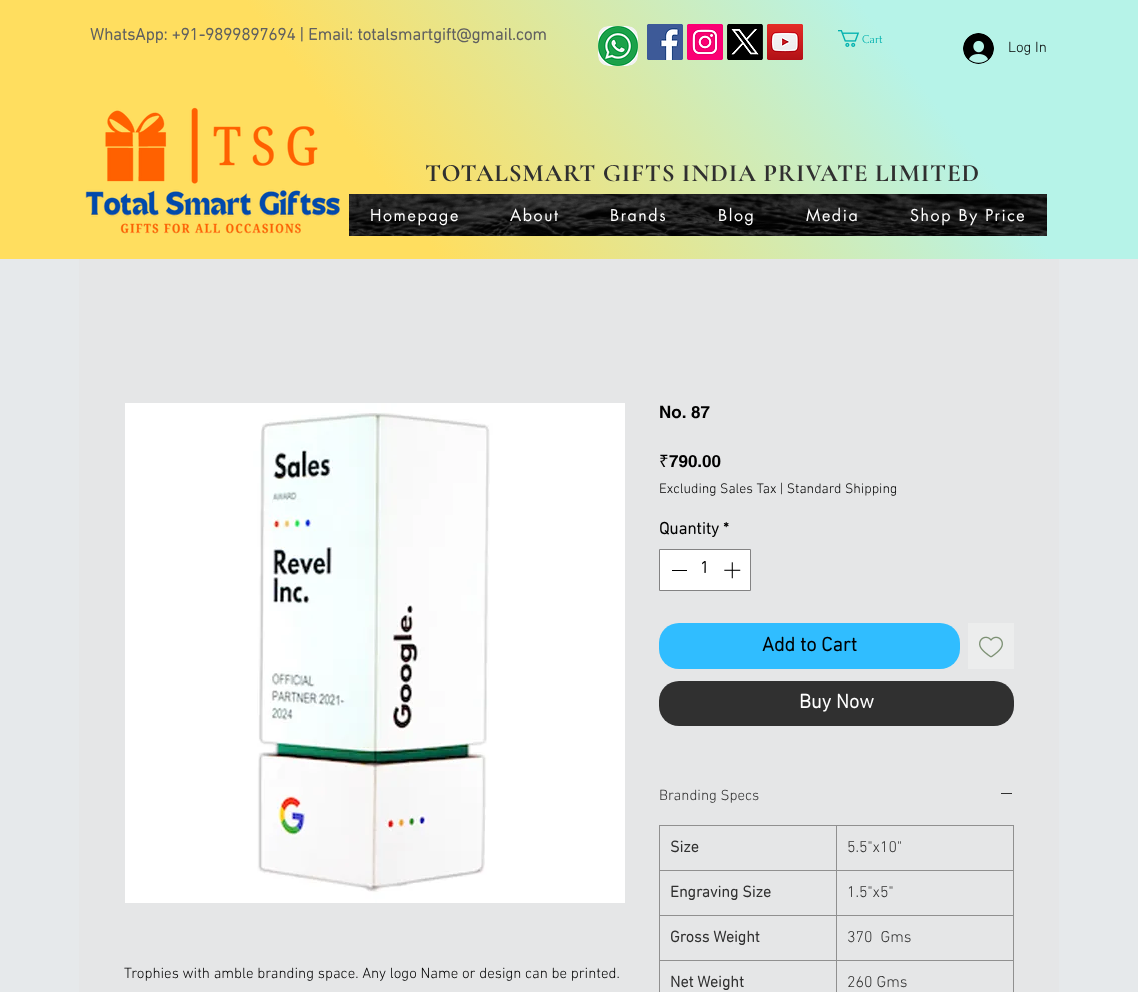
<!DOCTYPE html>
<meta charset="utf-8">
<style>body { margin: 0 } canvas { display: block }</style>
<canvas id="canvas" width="1138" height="992"></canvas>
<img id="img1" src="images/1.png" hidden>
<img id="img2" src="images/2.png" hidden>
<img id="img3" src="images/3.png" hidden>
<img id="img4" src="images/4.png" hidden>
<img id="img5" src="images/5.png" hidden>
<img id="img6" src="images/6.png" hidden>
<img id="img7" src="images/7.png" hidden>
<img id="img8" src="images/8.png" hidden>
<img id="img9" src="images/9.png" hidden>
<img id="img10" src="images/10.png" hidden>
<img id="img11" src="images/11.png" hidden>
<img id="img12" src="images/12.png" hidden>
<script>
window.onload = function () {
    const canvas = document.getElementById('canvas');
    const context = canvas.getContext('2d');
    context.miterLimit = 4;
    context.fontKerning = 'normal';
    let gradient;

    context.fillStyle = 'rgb(230, 233, 235)';
    context.fillRect(0, 0, 1138, 992);
    gradient = context.createLinearGradient(994, -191, 144, 450);
    gradient.addColorStop(0.21, 'rgb(182, 243, 232)');
    gradient.addColorStop(0.67, 'rgb(255, 222, 95)');
    context.fillStyle = gradient;
    context.fillRect(0, 0, 1138, 259);
    context.drawImage(document.getElementById('img1'), 598, 26, 40, 40);
    context.drawImage(document.getElementById('img2'), 647, 24, 36, 36);
    context.drawImage(document.getElementById('img3'), 687, 24, 36, 36);
    context.drawImage(document.getElementById('img4'), 727, 24, 36, 36);
    context.drawImage(document.getElementById('img5'), 767, 24, 36, 36);
    context.drawImage(document.getElementById('img6'), 838, 30, 22, 17);
    context.drawImage(document.getElementById('img7'), 963, 33, 31, 31);
    context.drawImage(document.getElementById('img8'), 85, 107, 255, 127);
    context.drawImage(document.getElementById('img9'), 349, 194, 698, 42);
    context.fillStyle = 'rgb(229, 230, 231)';
    context.fillRect(79, 259, 980, 733);
    context.drawImage(document.getElementById('img10'), 125, 403, 500, 500);
    context.fillStyle = 'rgb(255, 255, 255)';
    context.beginPath();
    context.rect(659.5, 549.5, 91, 41);
    context.fill();
    context.strokeStyle = 'rgb(131, 131, 131)';
    context.stroke();
    context.fillStyle = 'rgb(0, 0, 0)';
    context.fillRect(672, 570, 15, 1);
    context.drawImage(document.getElementById('img11'), 724, 562, 17, 17);
    context.fillStyle = 'rgb(48, 189, 255)';
    context.beginPath();
    context.roundRect(659, 623, 301, 46, 20);
    context.fill();
    context.fillStyle = 'rgb(236, 237, 237)';
    context.fillRect(968, 623, 46, 46);
    context.drawImage(document.getElementById('img12'), 979, 636, 24, 22);
    context.fillStyle = 'rgb(48, 48, 48)';
    context.beginPath();
    context.roundRect(659, 681, 355, 45, 20);
    context.fill();
    context.fillRect(1001, 793, 11, 1);
    context.fillStyle = 'rgb(144, 144, 144)';
    context.fillRect(836, 825, 178, 1);
    context.fillRect(836, 870, 178, 1);
    context.fillRect(836, 915, 178, 1);
    context.fillRect(836, 960, 178, 1);
    context.fillRect(836, 960, 1, 32);
    context.fillRect(659, 960, 178, 1);
    context.fillRect(836, 915, 1, 46);
    context.fillRect(659, 915, 178, 1);
    context.fillRect(836, 870, 1, 46);
    context.fillRect(659, 870, 178, 1);
    context.fillRect(836, 825, 1, 46);
    context.fillRect(659, 825, 178, 1);
    context.fillRect(659, 960, 1, 32);
    context.fillRect(659, 915, 1, 46);
    context.fillRect(659, 870, 1, 46);
    context.fillRect(659, 825, 1, 46);
    context.fillRect(1013, 960, 1, 32);
    context.fillRect(1013, 915, 1, 46);
    context.fillRect(1013, 870, 1, 46);
    context.fillRect(1013, 825, 1, 46);
    context.font = 'bold 17px "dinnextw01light"';
    context.fillStyle = 'rgb(96, 96, 96)';
    context.fillText('WhatsApp: +91-9899897694 | Email: totalsmartgift@gmail.com', 90, 40);
    context.font = '12px Forum';
    context.fillStyle = 'rgb(1, 177, 175)';
    context.fillText('Cart', 862, 43);
    context.font = '300 15px "dinnextw01light"';
    context.fillStyle = 'rgb(0, 0, 0)';
    context.fillText('Log In', 1008, 52);
    context.letterSpacing = '0.75px';
    context.font = 'bold 25px Cormorant Garamond';
    context.fillStyle = 'rgb(48, 48, 48)';
    context.fillText('TOTALSMART GIFTS INDIA PRIVATE LIMITED', 425, 181);
    context.letterSpacing = '1.6px';
    context.font = '16px futura';
    context.fillStyle = 'rgb(255, 255, 255)';
    context.fillText('Homepage', 370, 221);
    context.fillText('About', 510, 221);
    context.fillText('Brands', 610, 221);
    context.fillText('Blog', 718, 221);
    context.fillText('Media', 806, 221);
    context.fillText('Shop By Price', 910, 221);
    context.letterSpacing = '0px';
    context.font = '300 15px "dinnextw01light"';
    context.fillStyle = 'rgb(0, 0, 0)';
    context.fillText('Trophies with amble branding space. Any logo Name or design can be printed.', 124, 978);
    context.font = 'bold 17px helvetica';
    context.fillText('No. 87', 659, 418);
    context.font = '17px Noto Sans';
    context.fillText('₹', 659, 467);
    context.font = 'bold 17px helvetica';
    context.fillText('790.00', 669, 467);
    context.font = '300 14px "dinnextw01light"';
    context.fillText('Excluding Sales Tax | Standard Shipping', 659, 493);
    context.font = 'bold 17px "dinnextw01light"';
    context.fillText('Quantity *', 659, 534);
    context.fillText('1', 700, 573);
    context.font = 'bold 20px "dinnextw01light"';
    context.fillText('Add to Cart', 762, 651);
    context.fillStyle = 'rgb(255, 255, 255)';
    context.fillText('Buy Now', 799, 708);
    context.font = '300 15px "dinnextw01light"';
    context.fillStyle = 'rgb(48, 48, 48)';
    context.fillText('Branding Specs', 659, 800);
    context.font = 'bold 16px "dinnextw01light"';
    context.fillText('Size', 670, 852);
    context.font = '300 16px "dinnextw01light"';
    context.fillText('5.5"x10"', 847, 852);
    context.font = 'bold 16px "dinnextw01light"';
    context.fillText('Engraving Size', 670, 897);
    context.font = '300 16px "dinnextw01light"';
    context.fillText('1.5"x5"', 847, 897);
    context.font = 'bold 16px "dinnextw01light"';
    context.fillText('Gross Weight', 670, 942);
    context.font = '300 16px "dinnextw01light"';
    context.fillText('370  Gms', 847, 942);
    context.font = 'bold 16px "dinnextw01light"';
    context.fillText('Net Weight', 670, 987);
    context.font = '300 16px "dinnextw01light"';
    context.fillText('260 Gms', 847, 987);
};
</script>
